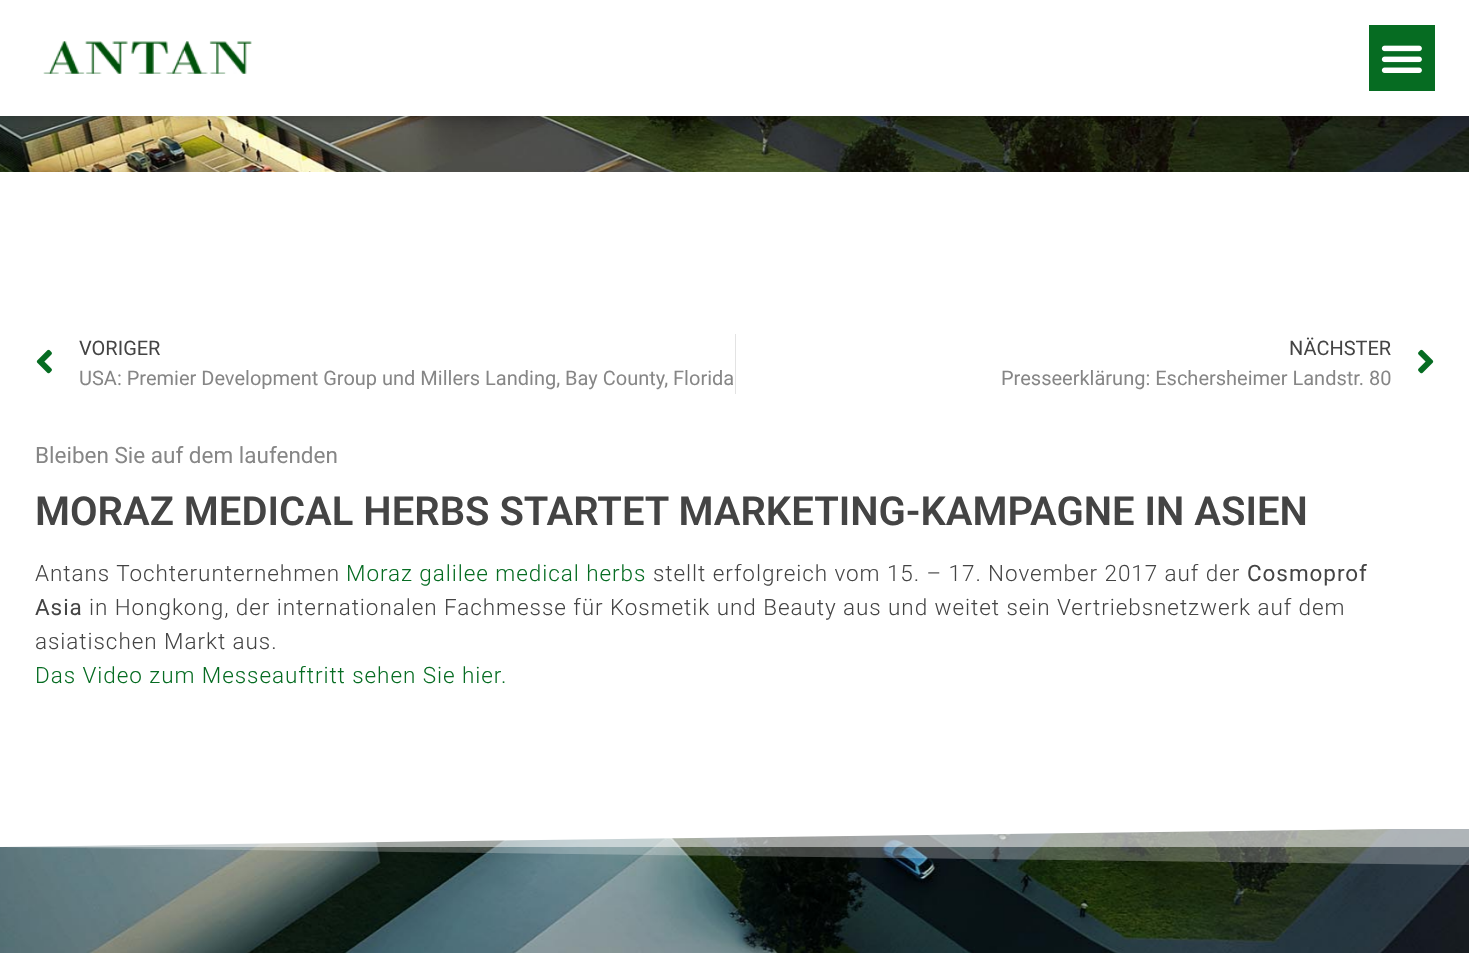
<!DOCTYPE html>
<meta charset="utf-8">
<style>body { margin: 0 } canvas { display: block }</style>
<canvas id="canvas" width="1469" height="953"></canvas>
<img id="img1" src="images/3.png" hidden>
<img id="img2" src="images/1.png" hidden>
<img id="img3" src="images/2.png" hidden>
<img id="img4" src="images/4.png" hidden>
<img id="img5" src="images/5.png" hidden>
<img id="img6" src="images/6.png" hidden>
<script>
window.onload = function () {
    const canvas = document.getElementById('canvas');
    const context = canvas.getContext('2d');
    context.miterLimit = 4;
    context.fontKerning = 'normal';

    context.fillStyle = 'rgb(255, 255, 255)';
    context.fillRect(0, 0, 1469, 953);
    context.drawImage(document.getElementById('img1'), 0, 116, 1469, 56);
    context.fillStyle = 'rgba(0, 0, 0, 0.25)';
    context.filter = 'blur(6px)';
    context.beginPath();
    context.rect(0, 0, 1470, 116);
    context.fill();
    context.filter = 'none';
    context.fillStyle = 'rgb(255, 255, 255)';
    context.fillRect(0, 0, 1469, 116);
    context.drawImage(document.getElementById('img2'), 43, 41, 209, 33);
    context.fillStyle = 'rgb(6, 108, 34)';
    context.fillRect(1369, 25, 66, 66);
    context.drawImage(document.getElementById('img3'), 1381, 45, 41, 28);
    context.drawImage(document.getElementById('img4'), 36, 349, 16, 25);
    context.fillStyle = 'rgb(227, 227, 227)';
    context.fillRect(735, 334, 1, 60);
    context.drawImage(document.getElementById('img5'), 1418, 349, 16, 25);
    context.drawImage(document.getElementById('img6'), 0, 829, 1469, 124);
    context.fillStyle = 'rgb(255, 255, 255)';
    context.beginPath();
    context.moveTo(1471, 828);
    context.lineTo(-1, 828);
    context.lineTo(-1, 847);
    context.closePath();
    context.fill();
    context.fillStyle = 'rgba(255, 255, 255, 0.5)';
    context.fillRect(2, 829, 1467, 18);
    context.fillStyle = 'rgba(255, 255, 255, 0.25)';
    context.beginPath();
    context.moveTo(-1, 828);
    context.lineTo(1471, 828);
    context.lineTo(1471, 865);
    context.lineTo(-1, 847);
    context.closePath();
    context.fill();
    context.font = '20px Roboto';
    context.fillStyle = 'rgb(68, 68, 68)';
    context.fillText('VORIGER', 79, 355);
    context.fillStyle = 'rgb(134, 134, 134)';
    context.fillText('USA: Premier Development Group und Millers Landing, Bay County, Florida', 79, 385);
    context.fillStyle = 'rgb(68, 68, 68)';
    context.fillText('NÄCHSTER', 1289, 355);
    context.fillStyle = 'rgb(134, 134, 134)';
    context.fillText('Presseerklärung: Eschersheimer Landstr. 80', 1001, 385);
    context.font = '22.5px Roboto';
    context.fillText('Bleiben Sie auf dem laufenden', 35, 463);
    context.font = '600 40px Roboto';
    context.fillStyle = 'rgb(68, 68, 68)';
    context.fillText('MORAZ MEDICAL HERBS STARTET MARKETING-KAMPAGNE IN ASIEN', 35, 525);
    context.letterSpacing = '0.94px';
    context.font = '300 22.5px Roboto';
    context.fillText('Antans Tochterunternehmen', 35, 581);
    context.fillStyle = 'rgb(6, 108, 34)';
    context.fillText('Moraz galilee medical herbs', 346, 581);
    context.fillStyle = 'rgb(68, 68, 68)';
    context.fillText('stellt erfolgreich vom 15. – 17. November 2017 auf der', 653, 581);
    context.font = '22.5px Roboto';
    context.fillText('Cosmoprof', 1247, 581);
    context.fillText('Asia', 35, 615);
    context.font = '300 22.5px Roboto';
    context.fillText('in Hongkong, der internationalen Fachmesse für Kosmetik und Beauty aus und weitet sein Vertriebsnetzwerk auf dem', 89, 615);
    context.fillText('asiatischen Markt aus.', 35, 649);
    context.fillStyle = 'rgb(6, 108, 34)';
    context.fillText('Das Video zum Messeauftritt sehen Sie hier.', 35, 683);
};
</script>
